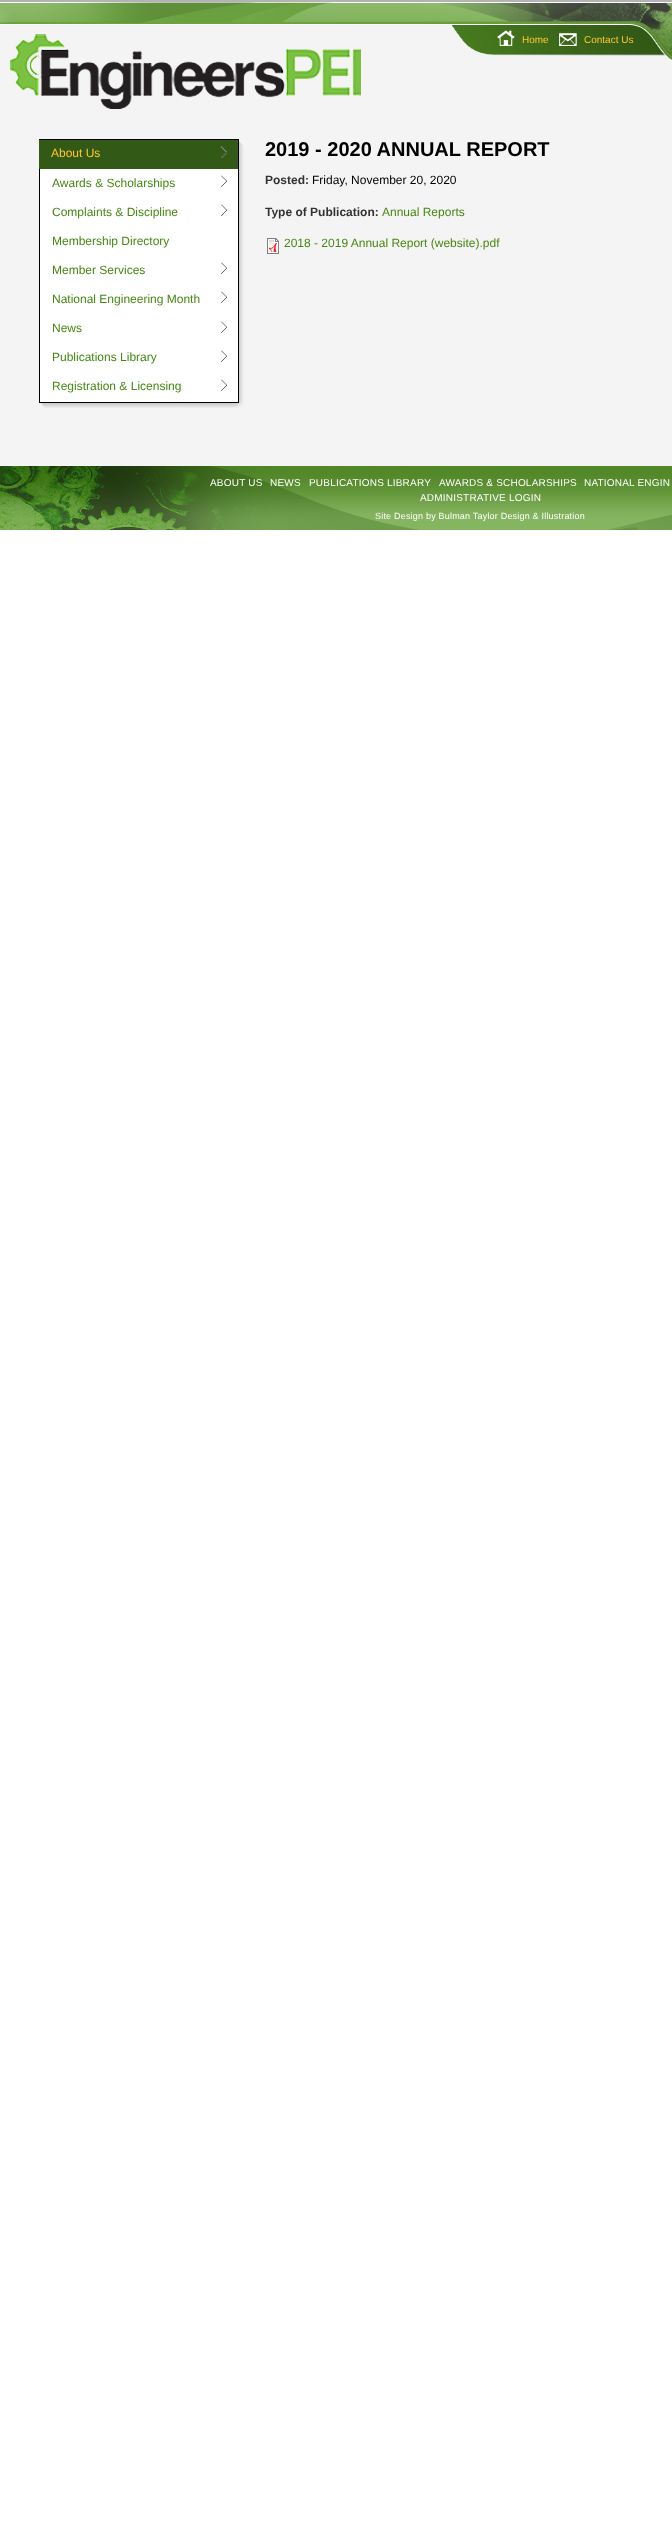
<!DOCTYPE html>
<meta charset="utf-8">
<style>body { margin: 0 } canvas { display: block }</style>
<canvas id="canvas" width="672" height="2538"></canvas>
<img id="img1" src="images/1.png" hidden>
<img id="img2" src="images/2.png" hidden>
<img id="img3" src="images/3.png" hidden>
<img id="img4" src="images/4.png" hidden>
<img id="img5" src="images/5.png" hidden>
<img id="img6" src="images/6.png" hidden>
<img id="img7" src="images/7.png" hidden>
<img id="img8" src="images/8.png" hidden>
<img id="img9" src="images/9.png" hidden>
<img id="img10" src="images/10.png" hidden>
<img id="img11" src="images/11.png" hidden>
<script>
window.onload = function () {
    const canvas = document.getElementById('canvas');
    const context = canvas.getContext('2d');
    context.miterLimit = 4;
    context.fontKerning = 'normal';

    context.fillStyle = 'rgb(255, 255, 255)';
    context.fillRect(0, 0, 672, 2538);
    context.fillStyle = 'rgb(244, 244, 244)';
    context.fillRect(0, 25, 672, 441);
    context.fillStyle = 'rgb(179, 179, 179)';
    context.fillRect(0, 0, 672, 2);
    context.drawImage(document.getElementById('img1'), 0, 2, 672, 59);
    context.drawImage(document.getElementById('img2'), 10, 34, 351, 75);
    context.drawImage(document.getElementById('img3'), 497, 30, 18, 16);
    context.drawImage(document.getElementById('img4'), 559, 33, 18, 13);
    context.drawImage(document.getElementById('img5'), 41, 141, 203, 267);
    context.fillStyle = 'rgb(51, 89, 22)';
    context.fillRect(39, 140, 199, 29);
    context.fillStyle = 'rgb(0, 0, 0)';
    context.fillRect(39, 139, 200, 1);
    context.fillRect(238, 140, 1, 262);
    context.drawImage(document.getElementById('img6'), 221, 146, 7, 12);
    context.fillStyle = 'rgb(255, 255, 255)';
    context.fillRect(40, 169, 198, 233);
    context.fillStyle = 'rgb(0, 0, 0)';
    context.fillRect(39, 169, 1, 233);
    context.drawImage(document.getElementById('img7'), 221, 175, 6, 12);
    context.drawImage(document.getElementById('img7'), 221, 204, 6, 12);
    context.drawImage(document.getElementById('img7'), 221, 262, 6, 12);
    context.drawImage(document.getElementById('img7'), 221, 291, 6, 12);
    context.drawImage(document.getElementById('img7'), 221, 321, 6, 12);
    context.drawImage(document.getElementById('img7'), 221, 350, 6, 12);
    context.fillRect(39, 402, 200, 1);
    context.drawImage(document.getElementById('img7'), 221, 379, 6, 12);
    context.drawImage(document.getElementById('img8'), 267, 238, 12, 16);
    context.drawImage(document.getElementById('img9'), 419, 466, 253, 64);
    context.drawImage(document.getElementById('img10'), 0, 466, 419, 64);
    context.drawImage(document.getElementById('img11'), 608, 514, 64, 16);
    context.font = '10px Liberation Sans';
    context.fillStyle = 'rgb(255, 200, 46)';
    context.fillText('Home', 522, 43);
    context.fillText('Contact Us', 584, 43);
    context.font = '12px Liberation Sans';
    context.fillText('About Us', 51, 157);
    context.fillStyle = 'rgb(70, 136, 18)';
    context.fillText('Awards & Scholarships', 52, 187);
    context.fillText('Complaints & Discipline', 52, 216);
    context.fillText('Membership Directory', 52, 245);
    context.fillText('Member Services', 52, 274);
    context.fillText('National Engineering Month', 52, 303);
    context.fillText('News', 52, 332);
    context.fillText('Publications Library', 52, 361);
    context.fillText('Registration & Licensing', 52, 390);
    context.font = 'bold 20px Liberation Sans';
    context.fillStyle = 'rgb(0, 0, 0)';
    context.fillText('2019 - 2020 ANNUAL REPORT', 265, 156);
    context.font = 'bold 12px Liberation Sans';
    context.fillStyle = 'rgb(51, 51, 51)';
    context.fillText('Posted:', 265, 184);
    context.font = '12px Liberation Sans';
    context.fillStyle = 'rgb(0, 0, 0)';
    context.fillText('Friday, November 20, 2020', 312, 184);
    context.font = 'bold 12px Liberation Sans';
    context.fillStyle = 'rgb(51, 51, 51)';
    context.fillText('Type of Publication:', 265, 216);
    context.font = '12px Liberation Sans';
    context.fillStyle = 'rgb(70, 136, 18)';
    context.fillText('Annual Reports', 382, 216);
    context.fillText('2018 - 2019 Annual Report (website).pdf', 284, 247);
    context.letterSpacing = '0.2px';
    context.font = '10px Liberation Sans';
    context.fillStyle = 'rgb(255, 255, 255)';
    context.fillText('ABOUT US', 210, 486);
    context.fillText('NEWS', 270, 486);
    context.fillText('PUBLICATIONS LIBRARY', 309, 486);
    context.fillText('AWARDS & SCHOLARSHIPS', 439, 486);
    context.fillText('NATIONAL ENGIN', 584, 486);
    context.fillText('ADMINISTRATIVE LOGIN', 420, 501);
    context.font = '9px Liberation Sans';
    context.fillText('Site Design by Bulman Taylor Design & Illustration', 375, 519);
};
</script>
